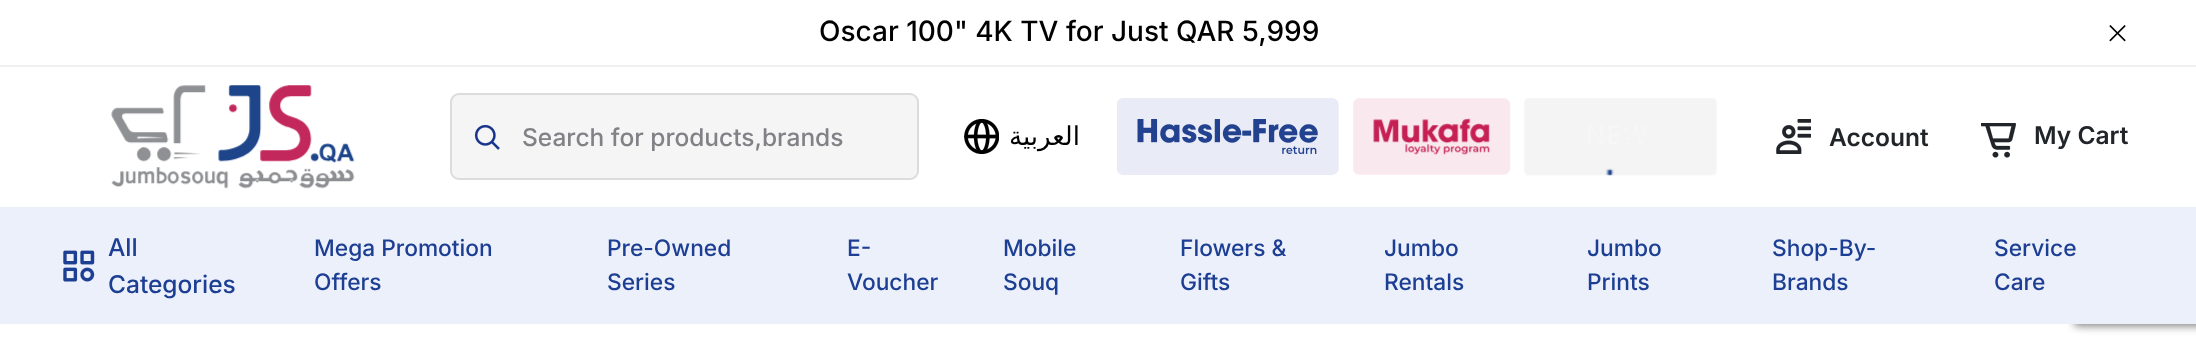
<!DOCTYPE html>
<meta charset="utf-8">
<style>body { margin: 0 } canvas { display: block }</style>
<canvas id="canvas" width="2196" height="349"></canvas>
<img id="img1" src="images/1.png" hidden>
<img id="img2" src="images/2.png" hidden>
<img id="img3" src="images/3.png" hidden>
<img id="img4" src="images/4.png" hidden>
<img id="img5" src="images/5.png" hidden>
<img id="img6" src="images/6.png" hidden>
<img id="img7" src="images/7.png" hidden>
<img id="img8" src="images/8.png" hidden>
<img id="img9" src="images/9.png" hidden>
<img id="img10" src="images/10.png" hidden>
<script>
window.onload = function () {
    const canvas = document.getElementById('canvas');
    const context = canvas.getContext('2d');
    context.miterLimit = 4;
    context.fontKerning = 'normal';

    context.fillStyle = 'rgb(255, 255, 255)';
    context.fillRect(0, 0, 2196, 349);
    context.fillStyle = 'rgb(239, 240, 241)';
    context.fillRect(0, 65, 2196, 2);
    context.drawImage(document.getElementById('img1'), 2109, 25, 17, 17);
    context.drawImage(document.getElementById('img2'), 111, 85, 244, 104);
    context.fillStyle = 'rgb(245, 245, 245)';
    context.beginPath();
    context.roundRect(451, 94, 467, 85, 8);
    context.fill();
    context.strokeStyle = 'rgb(220, 220, 222)';
    context.lineWidth = 2;
    context.stroke();
    context.drawImage(document.getElementById('img3'), 474, 124, 26, 26);
    context.drawImage(document.getElementById('img4'), 964, 119, 35, 35);
    context.drawImage(document.getElementById('img5'), 1117, 98, 222, 77);
    context.drawImage(document.getElementById('img6'), 1353, 98, 158, 77);
    context.drawImage(document.getElementById('img7'), 1524, 98, 193, 78);
    context.drawImage(document.getElementById('img8'), 1776, 119, 35, 35);
    context.drawImage(document.getElementById('img9'), 1981, 123, 35, 35);
    context.fillStyle = 'rgb(128, 128, 128)';
    context.filter = 'blur(4.5px)';
    context.beginPath();
    context.roundRect(2074, 221, 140, 105, 4);
    context.fill();
    context.filter = 'none';
    context.fillStyle = 'rgb(236, 240, 251)';
    context.fillRect(0, 207, 2196, 117);
    context.drawImage(document.getElementById('img10'), 63, 250, 32, 32);
    context.font = '500 28px Inter';
    context.fillStyle = 'rgb(0, 0, 0)';
    context.fillText('Oscar 100" 4K TV for Just QAR 5,999', 819, 41);
    context.font = '500 24.5px Inter';
    context.fillStyle = 'rgb(129, 129, 134)';
    context.fillText('Search for products,brands', 522, 146);
    context.direction = 'rtl';
    context.font = '26px DejaVu Sans';
    context.fillStyle = 'rgb(0, 0, 0)';
    context.fillText('العربية', 1080, 145);
    context.direction = 'ltr';
    context.font = '600 24.5px Inter';
    context.fillStyle = 'rgb(33, 37, 41)';
    context.fillText('Account', 1829, 146);
    context.fillText('My Cart', 2034, 144);
    context.font = '500 24.5px Inter';
    context.fillStyle = 'rgb(28, 62, 147)';
    context.fillText('All', 108, 256);
    context.fillText('Categories', 108, 293);
    context.font = '500 22.75px Inter';
    context.fillText('Mega Promotion', 314, 256);
    context.fillText('Offers', 314, 290);
    context.fillText('Pre-Owned', 607, 256);
    context.fillText('Series', 607, 290);
    context.fillText('E-', 847, 256);
    context.fillText('Voucher', 847, 290);
    context.fillText('Mobile', 1003, 256);
    context.fillText('Souq', 1003, 290);
    context.fillText('Flowers &', 1180, 256);
    context.fillText('Gifts', 1180, 290);
    context.fillText('Jumbo', 1384, 256);
    context.fillText('Rentals', 1384, 290);
    context.fillText('Jumbo', 1587, 256);
    context.fillText('Prints', 1587, 290);
    context.fillText('Shop-By-', 1772, 256);
    context.fillText('Brands', 1772, 290);
    context.fillText('Service', 1994, 256);
    context.fillText('Care', 1994, 290);
};
</script>
